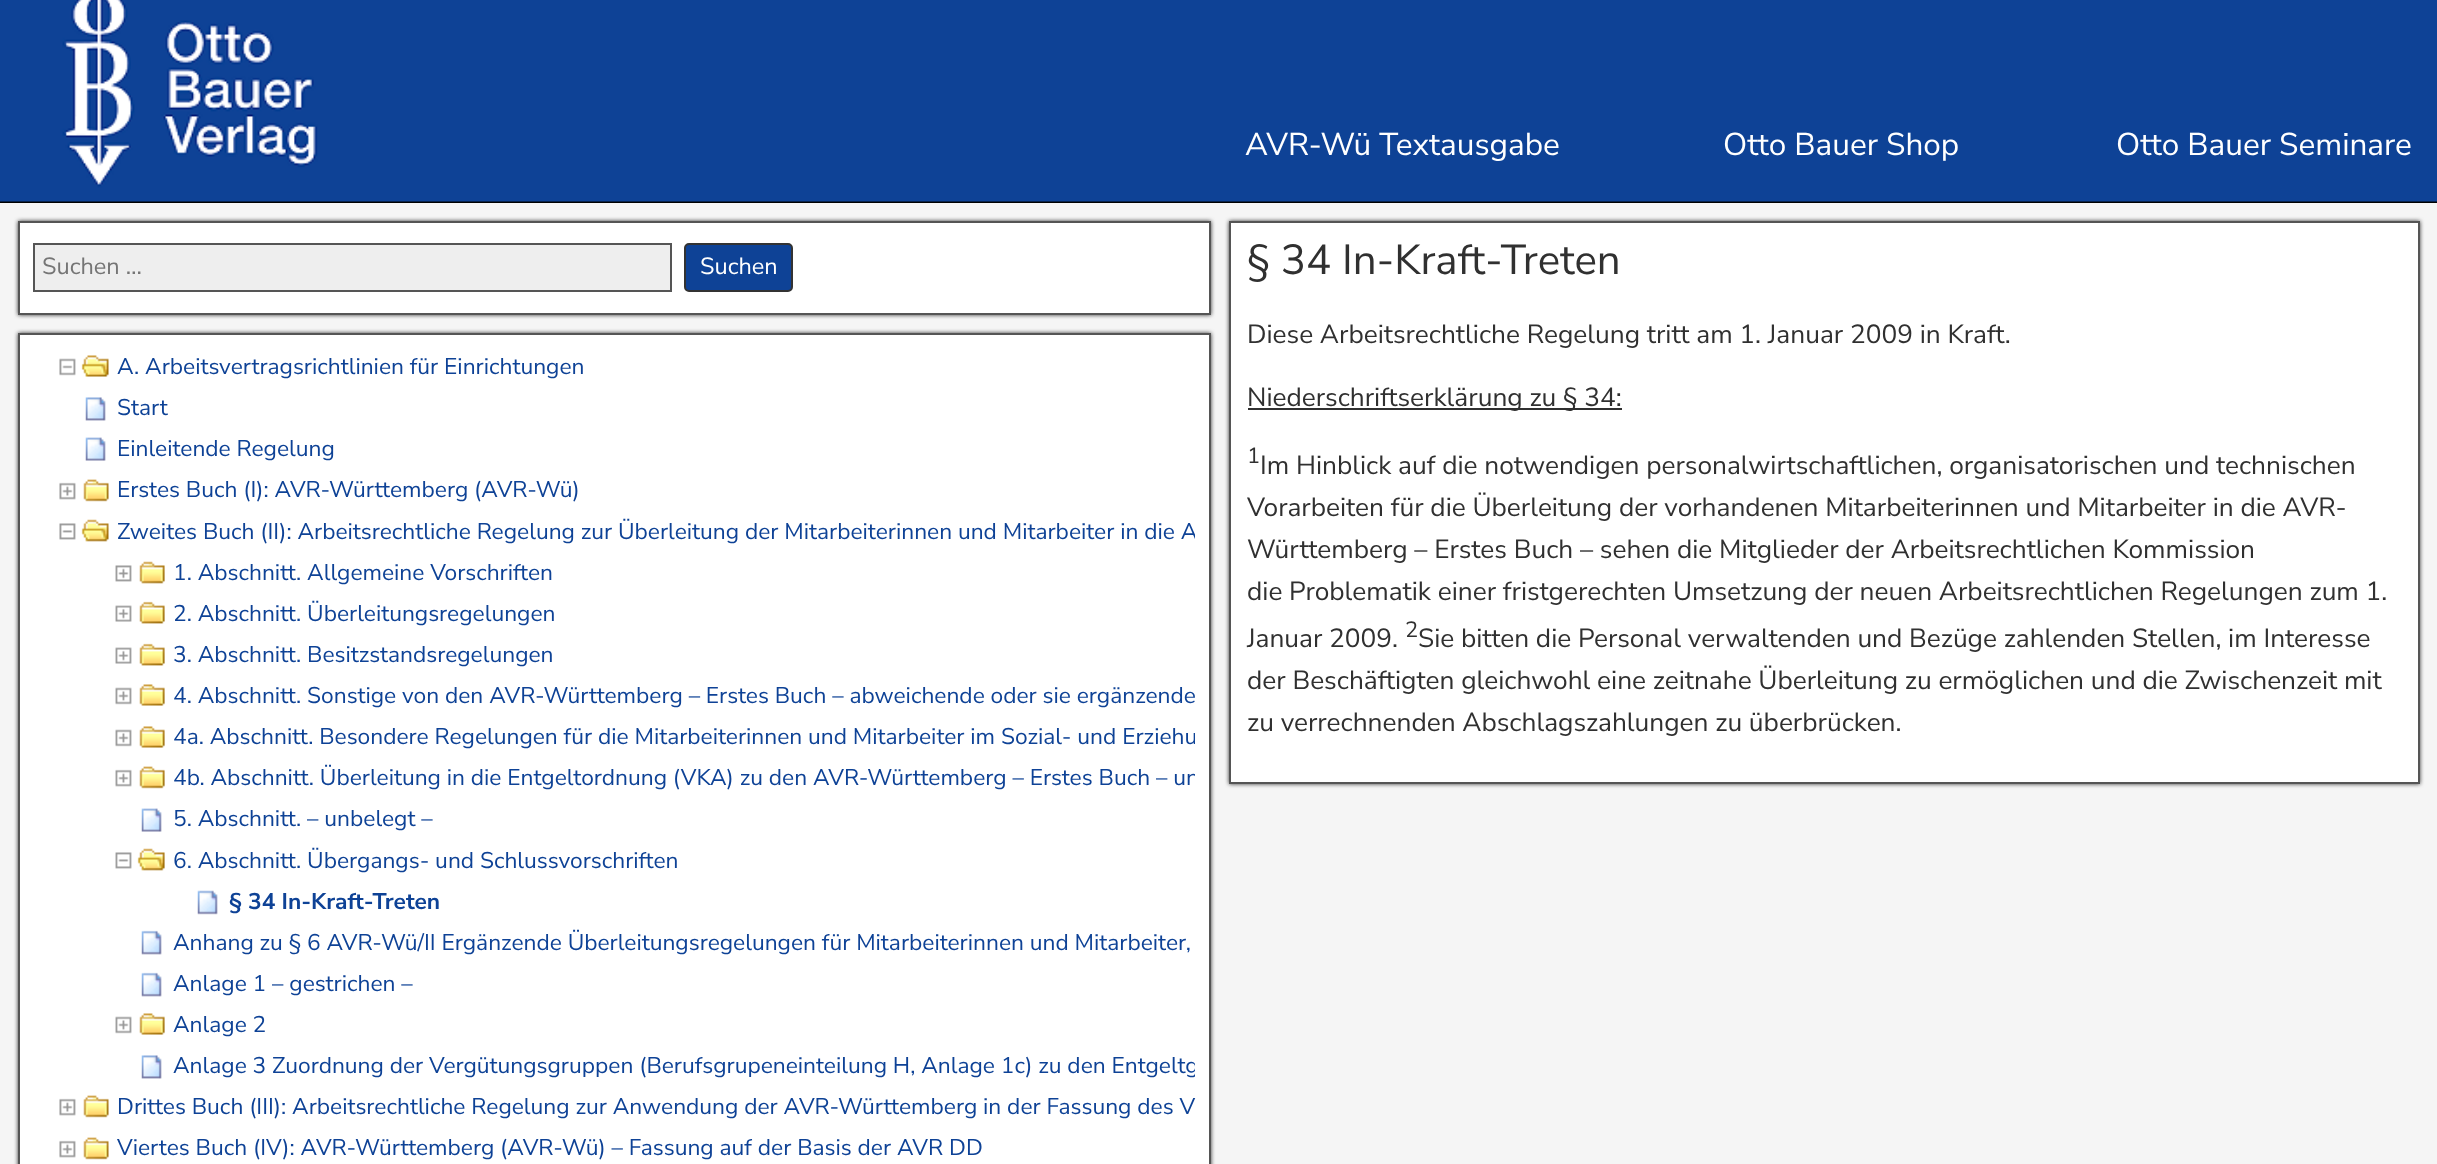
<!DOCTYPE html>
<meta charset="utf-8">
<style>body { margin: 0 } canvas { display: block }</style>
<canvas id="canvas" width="2437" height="1164"></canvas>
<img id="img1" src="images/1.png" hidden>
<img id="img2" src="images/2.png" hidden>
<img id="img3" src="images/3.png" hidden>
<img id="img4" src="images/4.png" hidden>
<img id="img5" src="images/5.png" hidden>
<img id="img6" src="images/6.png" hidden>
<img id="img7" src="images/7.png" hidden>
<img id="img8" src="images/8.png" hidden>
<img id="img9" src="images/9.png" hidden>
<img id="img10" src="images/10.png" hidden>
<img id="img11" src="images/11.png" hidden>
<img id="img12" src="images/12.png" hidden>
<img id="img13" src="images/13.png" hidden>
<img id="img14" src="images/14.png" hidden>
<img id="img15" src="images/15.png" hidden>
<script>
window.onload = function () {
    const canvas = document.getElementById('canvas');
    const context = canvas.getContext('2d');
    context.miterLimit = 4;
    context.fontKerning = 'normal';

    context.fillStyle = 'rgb(0, 0, 0)';
    context.fillRect(0, 0, 2437, 1164);
    context.drawImage(document.getElementById('img1'), 0, 0, 2437, 202);
    context.fillStyle = 'rgb(245, 245, 245)';
    context.fillRect(0, 203, 2437, 961);
    context.fillStyle = 'rgb(51, 51, 51)';
    context.filter = 'blur(2px)';
    context.beginPath();
    context.rect(18, 221, 1193, 94);
    context.fill();
    context.filter = 'none';
    context.fillStyle = 'rgb(255, 255, 255)';
    context.beginPath();
    context.rect(19, 222, 1191, 92);
    context.fill();
    context.strokeStyle = 'rgb(85, 85, 85)';
    context.lineWidth = 2;
    context.stroke();
    context.fillStyle = 'rgb(238, 238, 238)';
    context.beginPath();
    context.rect(34, 244, 637, 47);
    context.fill();
    context.stroke();
    context.fillStyle = 'rgb(14, 66, 150)';
    context.beginPath();
    context.roundRect(685, 244, 107, 47, 4);
    context.fill();
    context.strokeStyle = 'rgb(51, 51, 51)';
    context.stroke();
    context.fillStyle = 'rgb(51, 51, 51)';
    context.filter = 'blur(2px)';
    context.beginPath();
    context.rect(18, 333, 1193, 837);
    context.fill();
    context.filter = 'none';
    context.fillStyle = 'rgb(255, 255, 255)';
    context.beginPath();
    context.rect(19, 334, 1191, 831);
    context.fill();
    context.strokeStyle = 'rgb(85, 85, 85)';
    context.stroke();
    context.drawImage(document.getElementById('img2'), 59, 355, 50, 22);
    context.drawImage(document.getElementById('img3'), 85, 397, 21, 24);
    context.drawImage(document.getElementById('img4'), 85, 437, 21, 24);
    context.drawImage(document.getElementById('img5'), 59, 479, 50, 23);
    context.drawImage(document.getElementById('img6'), 59, 519, 50, 23);
    context.drawImage(document.getElementById('img7'), 115, 561, 50, 23);
    context.drawImage(document.getElementById('img8'), 115, 601, 50, 23);
    context.drawImage(document.getElementById('img8'), 115, 643, 50, 23);
    context.drawImage(document.getElementById('img9'), 115, 684, 50, 22);
    context.drawImage(document.getElementById('img9'), 115, 726, 50, 22);
    context.drawImage(document.getElementById('img10'), 115, 766, 50, 23);
    context.drawImage(document.getElementById('img11'), 141, 808, 21, 24);
    context.drawImage(document.getElementById('img12'), 115, 848, 50, 23);
    context.drawImage(document.getElementById('img13'), 197, 890, 21, 25);
    context.drawImage(document.getElementById('img14'), 141, 930, 21, 25);
    context.drawImage(document.getElementById('img14'), 141, 972, 21, 25);
    context.drawImage(document.getElementById('img9'), 115, 1013, 50, 22);
    context.drawImage(document.getElementById('img15'), 141, 1055, 21, 24);
    context.drawImage(document.getElementById('img5'), 59, 1095, 50, 23);
    context.drawImage(document.getElementById('img5'), 59, 1137, 50, 23);
    context.fillStyle = 'rgb(51, 51, 51)';
    context.filter = 'blur(2px)';
    context.beginPath();
    context.rect(1229, 221, 1191, 563);
    context.fill();
    context.filter = 'none';
    context.fillStyle = 'rgb(255, 255, 255)';
    context.beginPath();
    context.rect(1230, 222, 1189, 561);
    context.fill();
    context.stroke();
    context.fillStyle = 'rgb(48, 48, 48)';
    context.fillRect(1248, 408, 374, 2);
    context.font = '31.5px Nunito Sans';
    context.fillStyle = 'rgb(255, 255, 255)';
    context.fillText('AVR-Wü Textausgabe', 1245, 155);
    context.fillText('Otto Bauer Shop', 1723, 155);
    context.fillText('Otto Bauer Seminare', 2116, 155);
    context.font = '23.5px Nunito Sans';
    context.fillStyle = 'rgb(117, 117, 117)';
    context.fillText('Suchen …', 42, 274);
    context.fillStyle = 'rgb(255, 255, 255)';
    context.fillText('Suchen', 700, 274);
    context.font = '22.75px Nunito Sans';
    context.fillStyle = 'rgb(14, 66, 150)';
    context.fillText('A. Arbeitsvertragsrichtlinien für Einrichtungen', 117, 374);
    context.fillText('Start', 117, 415);
    context.fillText('Einleitende Regelung', 117, 456);
    context.fillText('Erstes Buch (I): AVR-Württemberg (AVR-Wü)', 117, 497);
    context.save();
    context.beginPath();
    context.rect(33, 348, 1162, 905);
    context.clip();
    context.fillText('Zweites Buch (II): Arbeitsrechtliche Regelung zur Überleitung der Mitarbeiterinnen und Mitarbeiter in die A', 117, 539);
    context.restore();
    context.fillText('1. Abschnitt. Allgemeine Vorschriften', 173, 580);
    context.fillText('2. Abschnitt. Überleitungsregelungen', 173, 621);
    context.fillText('3. Abschnitt. Besitzstandsregelungen', 173, 662);
    context.fillText('4. Abschnitt. Sonstige von den AVR-Württemberg – Erstes Buch – abweichende oder sie ergänzende', 173, 703);
    context.save();
    context.beginPath();
    context.rect(33, 348, 1162, 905);
    context.clip();
    context.fillText('4a. Abschnitt. Besondere Regelungen für die Mitarbeiterinnen und Mitarbeiter im Sozial- und Erziehu', 173, 744);
    context.fillText('4b. Abschnitt. Überleitung in die Entgeltordnung (VKA) zu den AVR-Württemberg – Erstes Buch – un', 173, 785);
    context.restore();
    context.fillText('5. Abschnitt. – unbelegt –', 173, 826);
    context.fillText('6. Abschnitt. Übergangs- und Schlussvorschriften', 173, 868);
    context.font = 'bold 22.75px Nunito Sans';
    context.fillText('§ 34 In-Kraft-Treten', 229, 909);
    context.font = '22.75px Nunito Sans';
    context.fillText('Anhang zu § 6 AVR-Wü/II Ergänzende Überleitungsregelungen für Mitarbeiterinnen und Mitarbeiter,', 173, 950);
    context.fillText('Anlage 1 – gestrichen –', 173, 991);
    context.fillText('Anlage 2', 173, 1032);
    context.save();
    context.beginPath();
    context.rect(33, 348, 1162, 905);
    context.clip();
    context.fillText('Anlage 3 Zuordnung der Vergütungsgruppen (Berufsgrupeneinteilung H, Anlage 1c) zu den Entgeltg', 173, 1073);
    context.restore();
    context.fillText('Drittes Buch (III): Arbeitsrechtliche Regelung zur Anwendung der AVR-Württemberg in der Fassung des V', 117, 1114);
    context.fillText('Viertes Buch (IV): AVR-Württemberg (AVR-Wü) – Fassung auf der Basis der AVR DD', 117, 1155);
    context.font = '42px Nunito Sans';
    context.fillStyle = 'rgb(48, 48, 48)';
    context.fillText('§ 34 In-Kraft-Treten', 1247, 274);
    context.font = '26.25px Nunito Sans';
    context.fillText('Diese Arbeitsrechtliche Regelung tritt am 1. Januar 2009 in Kraft.', 1247, 343);
    context.fillText('Niederschriftserklärung zu § 34:', 1247, 406);
    context.font = '22px Nunito Sans';
    context.fillText('1', 1247, 463);
    context.font = '26.25px Nunito Sans';
    context.fillText('Im Hinblick auf die notwendigen personalwirtschaftlichen, organisatorischen und technischen', 1260, 474);
    context.fillText('Vorarbeiten für die Überleitung der vorhandenen Mitarbeiterinnen und Mitarbeiter in die AVR-', 1247, 516);
    context.fillText('Württemberg – Erstes Buch – sehen die Mitglieder der Arbeitsrechtlichen Kommission', 1247, 558);
    context.fillText('die Problematik einer fristgerechten Umsetzung der neuen Arbeitsrechtlichen Regelungen zum 1.', 1247, 600);
    context.fillText('Januar 2009.', 1247, 647);
    context.font = '22px Nunito Sans';
    context.fillText('2', 1405, 637);
    context.font = '26.25px Nunito Sans';
    context.fillText('Sie bitten die Personal verwaltenden und Bezüge zahlenden Stellen, im Interesse', 1418, 647);
    context.fillText('der Beschäftigten gleichwohl eine zeitnahe Überleitung zu ermöglichen und die Zwischenzeit mit', 1247, 689);
    context.fillText('zu verrechnenden Abschlagszahlungen zu überbrücken.', 1247, 731);
};
</script>
